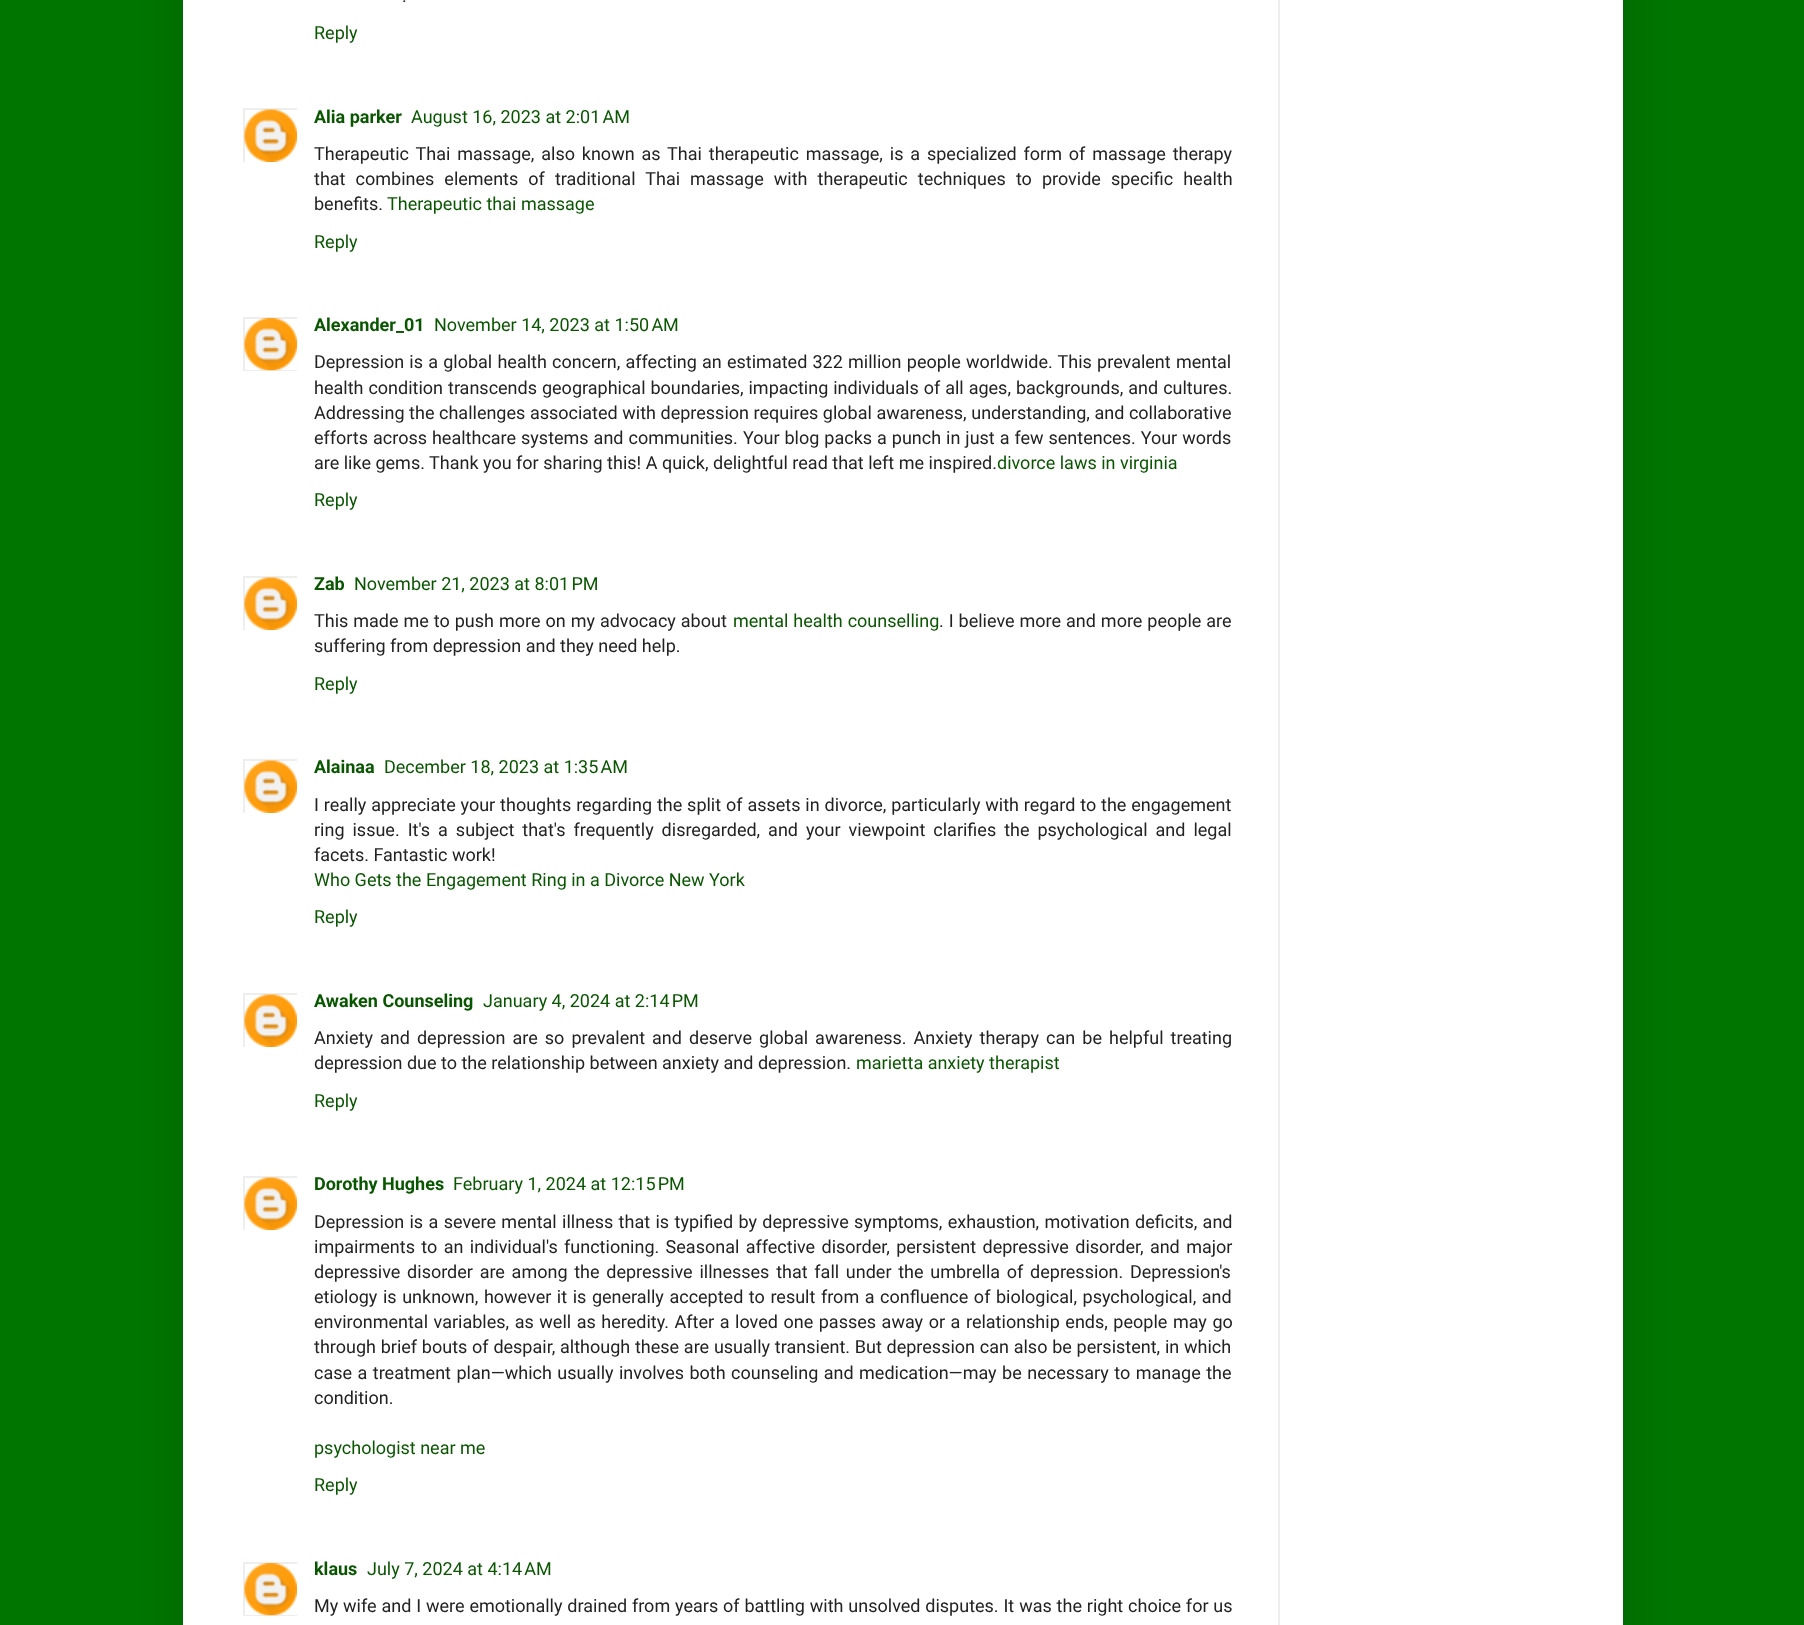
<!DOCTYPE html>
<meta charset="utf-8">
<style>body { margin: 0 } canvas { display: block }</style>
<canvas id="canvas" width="1804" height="1625"></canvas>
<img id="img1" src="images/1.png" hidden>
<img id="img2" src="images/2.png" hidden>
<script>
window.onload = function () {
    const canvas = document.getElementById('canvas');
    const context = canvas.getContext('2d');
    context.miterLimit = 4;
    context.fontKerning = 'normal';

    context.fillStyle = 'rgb(0, 118, 0)';
    context.fillRect(0, 0, 1804, 1625);
    context.fillStyle = 'rgba(0, 0, 0, 0.15)';
    context.filter = 'blur(30px)';
    context.beginPath();
    context.rect(183, -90, 1440, 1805);
    context.fill();
    context.filter = 'none';
    context.fillStyle = 'rgb(255, 255, 255)';
    context.fillRect(183, 0, 1440, 1625);
    context.save();
    context.beginPath();
    context.rect(243, 108, 54, 54);
    context.clip();
    context.strokeStyle = 'rgb(238, 238, 238)';
    context.lineWidth = 2;
    context.strokeRect(244, 109, 54, 54);
    context.restore();
    context.drawImage(document.getElementById('img1'), 244, 109, 53, 53);
    context.save();
    context.beginPath();
    context.rect(243, 317, 54, 54);
    context.clip();
    context.strokeStyle = 'rgb(238, 238, 238)';
    context.lineWidth = 2;
    context.strokeRect(244, 318, 54, 53);
    context.restore();
    context.drawImage(document.getElementById('img2'), 244, 318, 53, 53);
    context.save();
    context.beginPath();
    context.rect(243, 576, 54, 54);
    context.clip();
    context.strokeStyle = 'rgb(238, 238, 238)';
    context.lineWidth = 2;
    context.strokeRect(244, 577, 54, 54);
    context.restore();
    context.drawImage(document.getElementById('img1'), 244, 577, 53, 53);
    context.save();
    context.beginPath();
    context.rect(243, 759, 54, 54);
    context.clip();
    context.strokeStyle = 'rgb(238, 238, 238)';
    context.lineWidth = 2;
    context.strokeRect(244, 760, 54, 54);
    context.restore();
    context.drawImage(document.getElementById('img1'), 244, 760, 53, 53);
    context.save();
    context.beginPath();
    context.rect(243, 993, 54, 54);
    context.clip();
    context.strokeStyle = 'rgb(238, 238, 238)';
    context.lineWidth = 2;
    context.strokeRect(244, 994, 54, 54);
    context.restore();
    context.drawImage(document.getElementById('img1'), 244, 994, 53, 53);
    context.save();
    context.beginPath();
    context.rect(243, 1176, 54, 54);
    context.clip();
    context.strokeStyle = 'rgb(238, 238, 238)';
    context.lineWidth = 2;
    context.strokeRect(244, 1177, 54, 54);
    context.restore();
    context.drawImage(document.getElementById('img1'), 244, 1177, 53, 53);
    context.save();
    context.beginPath();
    context.rect(243, 1562, 54, 54);
    context.clip();
    context.strokeStyle = 'rgb(238, 238, 238)';
    context.lineWidth = 2;
    context.strokeRect(244, 1563, 54, 53);
    context.restore();
    context.drawImage(document.getElementById('img2'), 244, 1563, 53, 53);
    context.fillStyle = 'rgb(238, 238, 238)';
    context.fillRect(1278, 0, 2, 1625);
    context.font = '18px Roboto';
    context.fillStyle = 'rgb(34, 34, 34)';
    context.fillText('.', 402, 2);
    context.fillStyle = 'rgb(9, 86, 0)';
    context.fillText('Reply', 314, 39);
    context.font = 'bold 18px Roboto';
    context.fillText('Alia parker', 314, 123);
    context.font = '18px Roboto';
    context.fillText('August 16, 2023 at 2:01 AM', 411, 123);
    context.wordSpacing = '2.4px';
    context.fillStyle = 'rgb(34, 34, 34)';
    context.fillText('Therapeutic Thai massage, also known as Thai therapeutic massage, is a specialized form of massage therapy', 314, 160);
    context.wordSpacing = '5.6px';
    context.fillText('that combines elements of traditional Thai massage with therapeutic techniques to provide specific health', 314, 185);
    context.wordSpacing = '0px';
    context.fillText('benefits.', 314, 210);
    context.fillStyle = 'rgb(9, 86, 0)';
    context.fillText('Therapeutic thai massage', 387, 210);
    context.fillText('Reply', 314, 248);
    context.font = 'bold 18px Roboto';
    context.fillText('Alexander_01', 314, 331);
    context.font = '18px Roboto';
    context.fillText('November 14, 2023 at 1:50 AM', 434, 331);
    context.wordSpacing = '0.75px';
    context.fillStyle = 'rgb(34, 34, 34)';
    context.fillText('Depression is a global health concern, affecting an estimated 322 million people worldwide. This prevalent mental', 314, 368);
    context.wordSpacing = '0.5px';
    context.fillText('health condition transcends geographical boundaries, impacting individuals of all ages, backgrounds, and cultures.', 314, 394);
    context.wordSpacing = '0.1px';
    context.fillText('Addressing the challenges associated with depression requires global awareness, understanding, and collaborative', 314, 419);
    context.wordSpacing = '0.5px';
    context.fillText('efforts across healthcare systems and communities.', 314, 444);
    context.fillText('Your blog packs a punch in just a few sentences. Your words', 743, 444);
    context.wordSpacing = '0px';
    context.fillText('are like gems. Thank you for sharing this! A quick, delightful read that left me inspired.', 314, 469);
    context.fillStyle = 'rgb(9, 86, 0)';
    context.fillText('divorce laws in virginia', 997, 469);
    context.fillText('Reply', 314, 506);
    context.font = 'bold 18px Roboto';
    context.fillText('Zab', 314, 590);
    context.font = '18px Roboto';
    context.fillText('November 21, 2023 at 8:01 PM', 354, 590);
    context.wordSpacing = '0.5px';
    context.fillStyle = 'rgb(34, 34, 34)';
    context.fillText('This made me to push more on my advocacy about', 314, 627);
    context.fillStyle = 'rgb(9, 86, 0)';
    context.fillText('mental health counselling', 733, 627);
    context.fillStyle = 'rgb(34, 34, 34)';
    context.fillText('. I believe more and more people are', 939, 627);
    context.wordSpacing = '0px';
    context.fillText('suffering from depression and they need help.', 314, 652);
    context.fillStyle = 'rgb(9, 86, 0)';
    context.fillText('Reply', 314, 690);
    context.font = 'bold 18px Roboto';
    context.fillText('Alainaa', 314, 773);
    context.font = '18px Roboto';
    context.fillText('December 18, 2023 at 1:35 AM', 384, 773);
    context.wordSpacing = '0.4px';
    context.fillStyle = 'rgb(34, 34, 34)';
    context.fillText('I really appreciate your thoughts regarding the split of assets in divorce, particularly with regard to the engagement', 314, 811);
    context.wordSpacing = '3.5px';
    context.fillText('ring issue. It\'s a subject that\'s frequently disregarded, and your viewpoint clarifies the psychological and legal', 314, 836);
    context.wordSpacing = '0px';
    context.fillText('facets. Fantastic work!', 314, 861);
    context.fillStyle = 'rgb(9, 86, 0)';
    context.fillText('Who Gets the Engagement Ring in a Divorce New York', 314, 886);
    context.fillText('Reply', 314, 923);
    context.font = 'bold 18px Roboto';
    context.fillText('Awaken Counseling', 314, 1007);
    context.font = '18px Roboto';
    context.fillText('January 4, 2024 at 2:14 PM', 483, 1007);
    context.wordSpacing = '2.6px';
    context.fillStyle = 'rgb(34, 34, 34)';
    context.fillText('Anxiety and depression are so prevalent and deserve global awareness. Anxiety therapy can be helpful treating', 314, 1044);
    context.wordSpacing = '0px';
    context.fillText('depression due to the relationship between anxiety and depression.', 314, 1069);
    context.fillStyle = 'rgb(9, 86, 0)';
    context.fillText('marietta anxiety therapist', 856, 1069);
    context.fillText('Reply', 314, 1107);
    context.font = 'bold 18px Roboto';
    context.fillText('Dorothy Hughes', 314, 1190);
    context.font = '18px Roboto';
    context.fillText('February 1, 2024 at 12:15 PM', 453, 1190);
    context.wordSpacing = '0.9px';
    context.fillStyle = 'rgb(34, 34, 34)';
    context.fillText('Depression is a severe mental illness that is typified by depressive symptoms, exhaustion, motivation deficits, and', 314, 1228);
    context.wordSpacing = '1.9px';
    context.fillText('impairments to an individual\'s functioning. Seasonal affective disorder, persistent depressive disorder, and major', 314, 1253);
    context.wordSpacing = '2.25px';
    context.fillText('depressive disorder are among the depressive illnesses that fall under the umbrella of depression. Depression\'s', 314, 1278);
    context.wordSpacing = '1.1px';
    context.fillText('etiology is unknown, however it is generally accepted to result from a confluence of biological, psychological, and', 314, 1303);
    context.fillText('environmental variables, as well as heredity. After a loved one passes away or a relationship ends, people may go', 314, 1328);
    context.wordSpacing = '0.3px';
    context.fillText('through brief bouts of despair, although these are usually transient. But depression can also be persistent, in which', 314, 1353);
    context.wordSpacing = '1px';
    context.fillText('case a treatment plan—which usually involves both counseling and medication—may be necessary to manage the', 314, 1379);
    context.wordSpacing = '0px';
    context.fillText('condition.', 314, 1404);
    context.fillStyle = 'rgb(9, 86, 0)';
    context.fillText('psychologist near me', 314, 1454);
    context.fillText('Reply', 314, 1491);
    context.font = 'bold 18px Roboto';
    context.fillText('klaus', 314, 1575);
    context.font = '18px Roboto';
    context.fillText('July 7, 2024 at 4:14 AM', 367, 1575);
    context.wordSpacing = '0.4px';
    context.fillStyle = 'rgb(34, 34, 34)';
    context.fillText('My wife and I were emotionally drained from years of battling with unsolved disputes. It was the right choice for us', 314, 1612);
};
</script>
